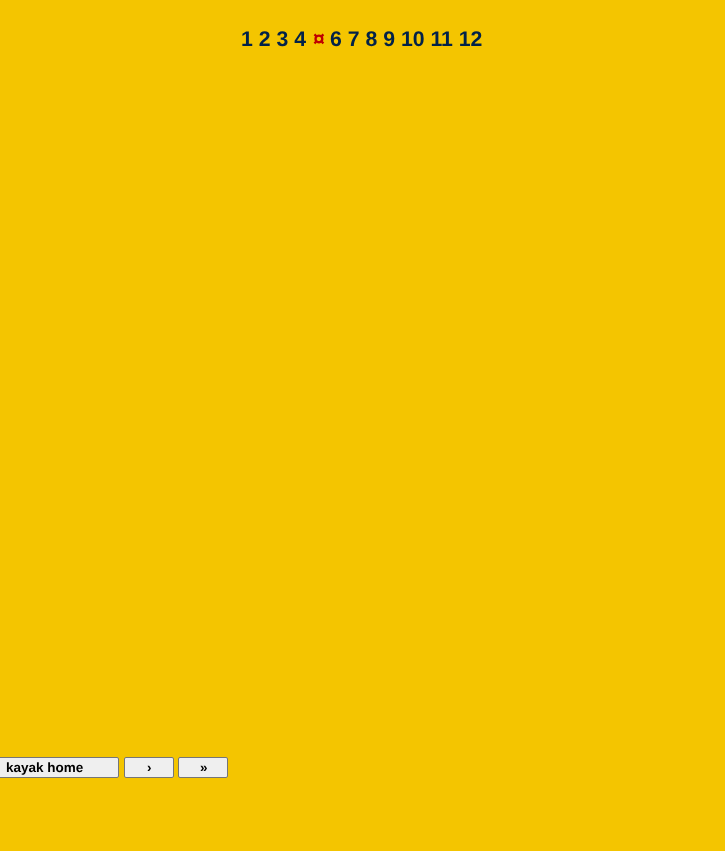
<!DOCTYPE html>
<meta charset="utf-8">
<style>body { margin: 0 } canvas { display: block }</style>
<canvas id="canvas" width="725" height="851"></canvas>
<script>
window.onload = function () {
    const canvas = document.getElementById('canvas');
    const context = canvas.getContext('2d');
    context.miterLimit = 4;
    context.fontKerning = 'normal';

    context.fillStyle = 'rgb(244, 197, 0)';
    context.fillRect(0, 0, 725, 851);
    context.fillStyle = 'rgb(239, 239, 239)';
    context.beginPath();
    context.roundRect(-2.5, 757.5, 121, 20, 1.5);
    context.fill();
    context.strokeStyle = 'rgb(118, 118, 118)';
    context.stroke();
    context.beginPath();
    context.roundRect(124.5, 757.5, 49, 20, 1.5);
    context.fill();
    context.stroke();
    context.beginPath();
    context.roundRect(178.5, 757.5, 49, 20, 1.5);
    context.fill();
    context.stroke();
    context.font = 'bold 21.25px Liberation Sans';
    context.fillStyle = 'rgb(2, 34, 72)';
    context.fillText('1 2 3 4', 241, 46);
    context.fillStyle = 'rgb(190, 0, 0)';
    context.fillText('¤', 313, 46);
    context.fillStyle = 'rgb(2, 34, 72)';
    context.fillText('6 7 8 9 10 11 12', 330, 46);
    context.font = 'bold 13.5px Liberation Sans';
    context.fillStyle = 'rgb(0, 0, 0)';
    context.fillText('kayak home', 6, 772);
    context.fillText('›', 147, 772);
    context.fillText('»', 200, 772);
};
</script>
